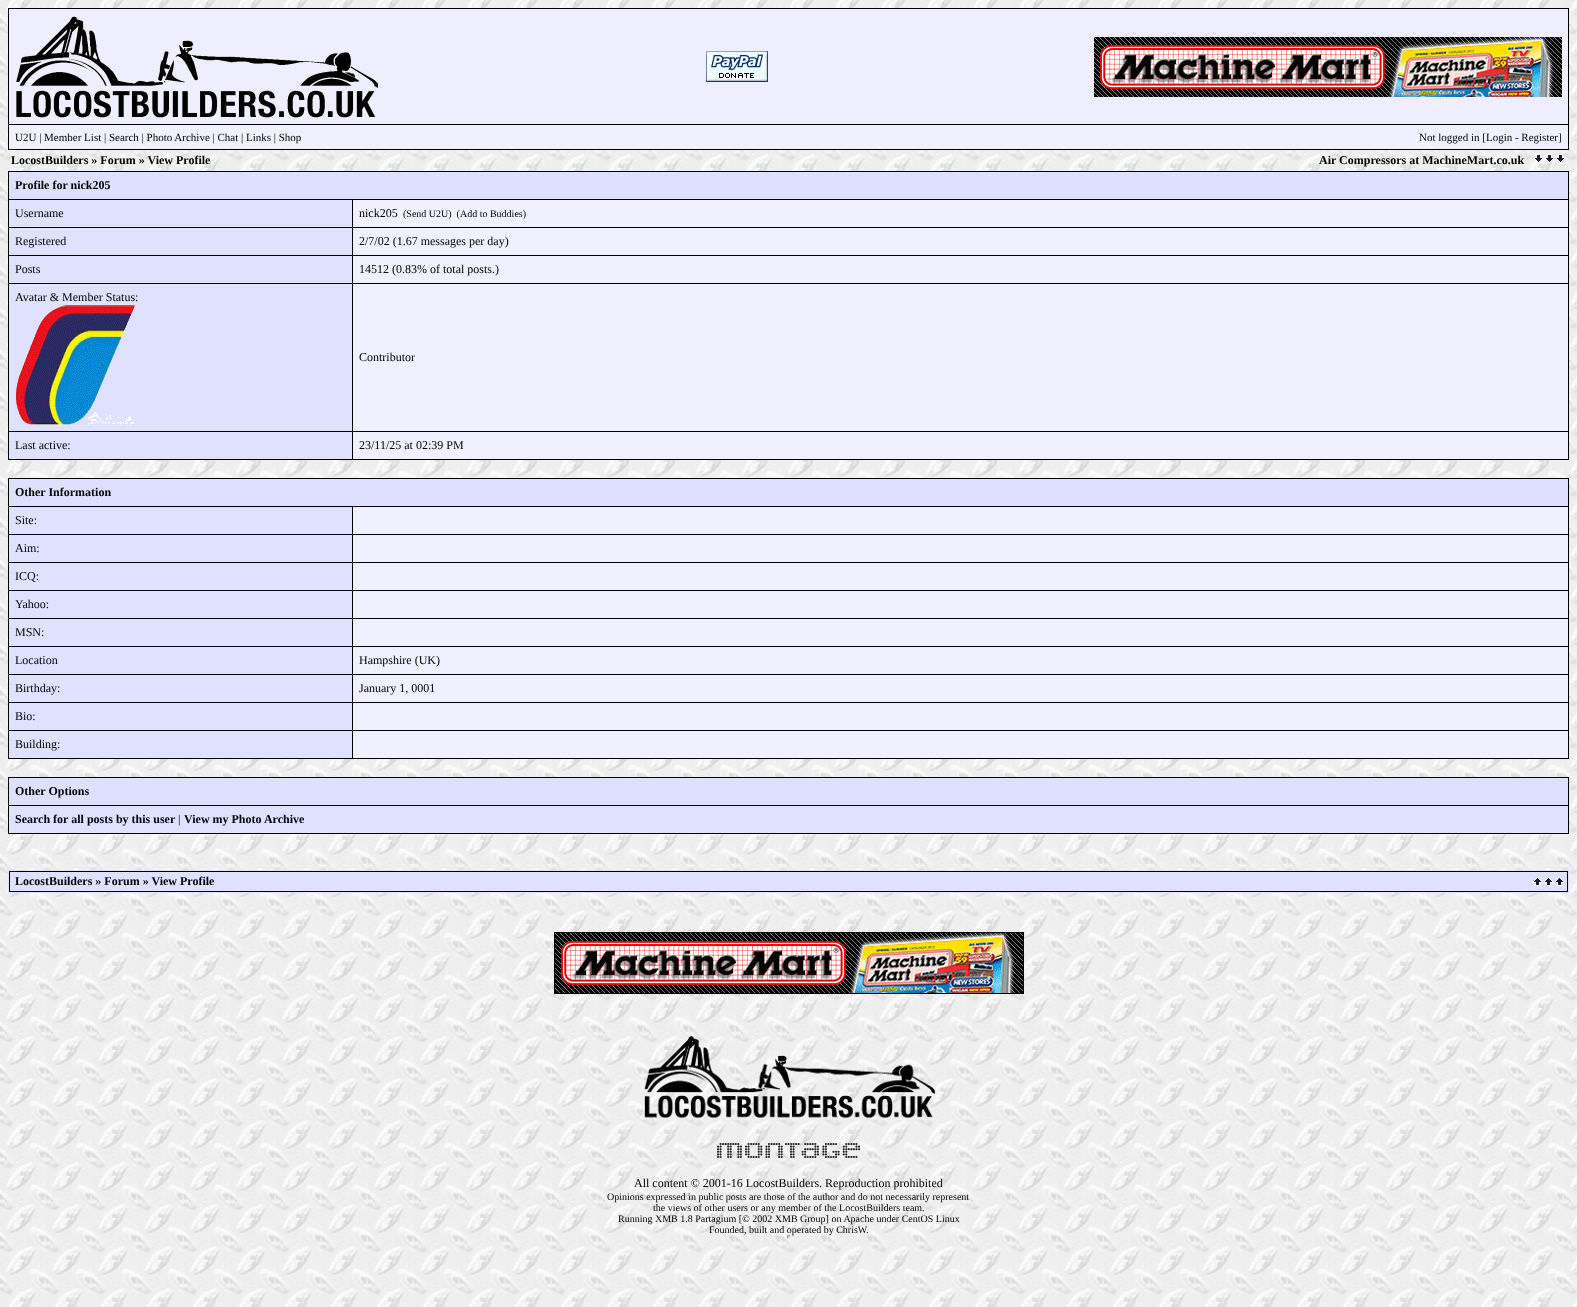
<!DOCTYPE html>
<meta charset="utf-8">
<style>body { margin: 0 } canvas { display: block }</style>
<canvas id="canvas" width="1577" height="1307"></canvas>
<img id="img1" src="images/1.png" hidden>
<img id="img2" src="images/2.png" hidden>
<img id="img3" src="images/3.png" hidden>
<img id="img4" src="images/4.png" hidden>
<img id="img5" src="images/5.png" hidden>
<img id="img6" src="images/6.png" hidden>
<img id="img7" src="images/7.png" hidden>
<img id="img8" src="images/8.png" hidden>
<img id="img9" src="images/9.png" hidden>
<script>
window.onload = function () {
    const canvas = document.getElementById('canvas');
    const context = canvas.getContext('2d');
    context.miterLimit = 4;
    context.fontKerning = 'normal';

    context.fillStyle = 'rgb(255, 255, 255)';
    context.fillRect(0, 0, 1577, 1307);
    context.drawImage(document.getElementById('img1'), 0, 0, 1577, 1307);
    context.fillStyle = 'rgb(0, 0, 0)';
    context.fillRect(8, 8, 1561, 142);
    context.fillStyle = 'rgb(238, 238, 255)';
    context.fillRect(9, 9, 1559, 115);
    context.drawImage(document.getElementById('img2'), 16, 16, 362, 102);
    context.drawImage(document.getElementById('img3'), 706, 51, 62, 31);
    context.drawImage(document.getElementById('img4'), 1094, 37, 468, 60);
    context.fillStyle = 'rgb(240, 240, 255)';
    context.fillRect(9, 125, 1559, 24);
    context.drawImage(document.getElementById('img5'), 1534, 154, 31, 9);
    context.fillStyle = 'rgb(0, 0, 0)';
    context.fillRect(8, 171, 1561, 289);
    context.fillStyle = 'rgb(223, 223, 255)';
    context.fillRect(9, 172, 1559, 27);
    context.fillStyle = 'rgb(224, 224, 255)';
    context.fillRect(9, 200, 343, 27);
    context.fillStyle = 'rgb(240, 240, 255)';
    context.fillRect(353, 200, 1215, 27);
    context.fillStyle = 'rgb(224, 224, 255)';
    context.fillRect(9, 228, 343, 27);
    context.fillStyle = 'rgb(240, 240, 255)';
    context.fillRect(353, 228, 1215, 27);
    context.fillStyle = 'rgb(224, 224, 255)';
    context.fillRect(9, 256, 343, 27);
    context.fillStyle = 'rgb(240, 240, 255)';
    context.fillRect(353, 256, 1215, 27);
    context.fillStyle = 'rgb(224, 224, 255)';
    context.fillRect(9, 284, 343, 147);
    context.drawImage(document.getElementById('img6'), 16, 305, 119, 120);
    context.fillStyle = 'rgb(240, 240, 255)';
    context.fillRect(353, 284, 1215, 147);
    context.fillStyle = 'rgb(224, 224, 255)';
    context.fillRect(9, 432, 343, 27);
    context.fillStyle = 'rgb(240, 240, 255)';
    context.fillRect(353, 432, 1215, 27);
    context.fillStyle = 'rgb(0, 0, 0)';
    context.fillRect(8, 478, 1561, 281);
    context.fillStyle = 'rgb(223, 223, 255)';
    context.fillRect(9, 479, 1559, 27);
    context.fillStyle = 'rgb(224, 224, 255)';
    context.fillRect(9, 507, 343, 27);
    context.fillStyle = 'rgb(240, 240, 255)';
    context.fillRect(353, 507, 1215, 27);
    context.fillStyle = 'rgb(224, 224, 255)';
    context.fillRect(9, 535, 343, 27);
    context.fillStyle = 'rgb(240, 240, 255)';
    context.fillRect(353, 535, 1215, 27);
    context.fillStyle = 'rgb(224, 224, 255)';
    context.fillRect(9, 563, 343, 27);
    context.fillStyle = 'rgb(240, 240, 255)';
    context.fillRect(353, 563, 1215, 27);
    context.fillStyle = 'rgb(224, 224, 255)';
    context.fillRect(9, 591, 343, 27);
    context.fillStyle = 'rgb(240, 240, 255)';
    context.fillRect(353, 591, 1215, 27);
    context.fillStyle = 'rgb(224, 224, 255)';
    context.fillRect(9, 619, 343, 27);
    context.fillStyle = 'rgb(240, 240, 255)';
    context.fillRect(353, 619, 1215, 27);
    context.fillStyle = 'rgb(224, 224, 255)';
    context.fillRect(9, 647, 343, 27);
    context.fillStyle = 'rgb(240, 240, 255)';
    context.fillRect(353, 647, 1215, 27);
    context.fillStyle = 'rgb(224, 224, 255)';
    context.fillRect(9, 675, 343, 27);
    context.fillStyle = 'rgb(240, 240, 255)';
    context.fillRect(353, 675, 1215, 27);
    context.fillStyle = 'rgb(224, 224, 255)';
    context.fillRect(9, 703, 343, 27);
    context.fillStyle = 'rgb(240, 240, 255)';
    context.fillRect(353, 703, 1215, 27);
    context.fillStyle = 'rgb(224, 224, 255)';
    context.fillRect(9, 731, 343, 27);
    context.fillStyle = 'rgb(240, 240, 255)';
    context.fillRect(353, 731, 1215, 27);
    context.fillStyle = 'rgb(0, 0, 0)';
    context.fillRect(8, 777, 1561, 57);
    context.fillStyle = 'rgb(223, 223, 255)';
    context.fillRect(9, 778, 1559, 27);
    context.fillStyle = 'rgb(224, 224, 255)';
    context.fillRect(9, 806, 1559, 27);
    context.fillRect(8, 870, 1561, 23);
    context.fillStyle = 'rgb(0, 0, 0)';
    context.fillRect(9, 871, 1559, 21);
    context.fillStyle = 'rgb(224, 224, 255)';
    context.fillRect(10, 872, 1557, 19);
    context.drawImage(document.getElementById('img7'), 1533, 877, 31, 9);
    context.fillStyle = 'rgb(0, 0, 0)';
    context.fillRect(554, 932, 470, 62);
    context.drawImage(document.getElementById('img4'), 555, 933, 468, 60);
    context.drawImage(document.getElementById('img8'), 644, 1036, 292, 82);
    context.drawImage(document.getElementById('img9'), 717, 1143, 143, 15);
    context.font = '11px Liberation Serif';
    context.fillText('U2U | Member List | Search | Photo Archive | Chat | Links | Shop', 15, 141);
    context.fillText('Not logged in [Login - Register]', 1419, 141);
    context.font = 'bold 12px Liberation Serif';
    context.fillText('LocostBuilders » Forum » View Profile', 11, 164);
    context.fillText('Air Compressors at MachineMart.co.uk', 1319, 164);
    context.fillText('Profile for nick205', 15, 189);
    context.font = '12px Liberation Serif';
    context.fillText('Username', 15, 217);
    context.fillText('nick205', 359, 217);
    context.font = '10px Liberation Serif';
    context.fillText('(Send U2U)  (Add to Buddies)', 403, 217);
    context.font = '12px Liberation Serif';
    context.fillText('Registered', 15, 245);
    context.fillText('2/7/02 (1.67 messages per day)', 359, 245);
    context.fillText('Posts', 15, 273);
    context.fillText('14512 (0.83% of total posts.)', 359, 273);
    context.fillText('Avatar & Member Status:', 15, 301);
    context.fillText('Contributor', 359, 361);
    context.fillText('Last active:', 15, 449);
    context.fillText('23/11/25 at 02:39 PM', 359, 449);
    context.font = 'bold 12px Liberation Serif';
    context.fillText('Other Information', 15, 496);
    context.font = '12px Liberation Serif';
    context.fillText('Site:', 15, 524);
    context.fillText('Aim:', 15, 552);
    context.fillText('ICQ:', 15, 580);
    context.fillText('Yahoo:', 15, 608);
    context.fillText('MSN:', 15, 636);
    context.fillText('Location', 15, 664);
    context.fillText('Hampshire (UK)', 359, 664);
    context.fillText('Birthday:', 15, 692);
    context.fillText('January 1, 0001', 359, 692);
    context.fillText('Bio:', 15, 720);
    context.fillText('Building:', 15, 748);
    context.font = 'bold 12px Liberation Serif';
    context.fillText('Other Options', 15, 795);
    context.fillText('Search for all posts by this user', 15, 823);
    context.font = '12px Liberation Serif';
    context.fillText('|', 178, 823);
    context.font = 'bold 12px Liberation Serif';
    context.fillText('View my Photo Archive', 184, 823);
    context.fillText('LocostBuilders » Forum » View Profile', 15, 885);
    context.font = '12px Liberation Serif';
    context.fillText('All content © 2001-16 LocostBuilders. Reproduction prohibited', 634, 1187);
    context.font = '10px Liberation Serif';
    context.fillText('Opinions expressed in public posts are those of the author and do not necessarily represent', 607, 1200);
    context.fillText('the views of other users or any member of the LocostBuilders team.', 653, 1211);
    context.fillText('Running XMB 1.8 Partagium [© 2002 XMB Group] on Apache under CentOS Linux', 618, 1222);
    context.fillText('Founded, built and operated by ChrisW', 709, 1233);
    context.fillStyle = 'rgb(159, 159, 159)';
    context.beginPath();
    context.moveTo(787, 1235);
    context.lineTo(791, 1235);
    context.lineTo(789, 1237);
    context.closePath();
    context.fill();
    context.fillStyle = 'rgb(238, 238, 238)';
    context.beginPath();
    context.moveTo(791, 1235);
    context.lineTo(791, 1239);
    context.lineTo(789, 1237);
    context.closePath();
    context.fill();
    context.beginPath();
    context.moveTo(791, 1239);
    context.lineTo(787, 1239);
    context.lineTo(789, 1237);
    context.closePath();
    context.fill();
    context.fillStyle = 'rgb(159, 159, 159)';
    context.beginPath();
    context.moveTo(787, 1239);
    context.lineTo(787, 1235);
    context.lineTo(789, 1237);
    context.closePath();
    context.fill();
    context.fillStyle = 'rgb(0, 0, 0)';
    context.fillText('.', 866, 1233);
};
</script>
